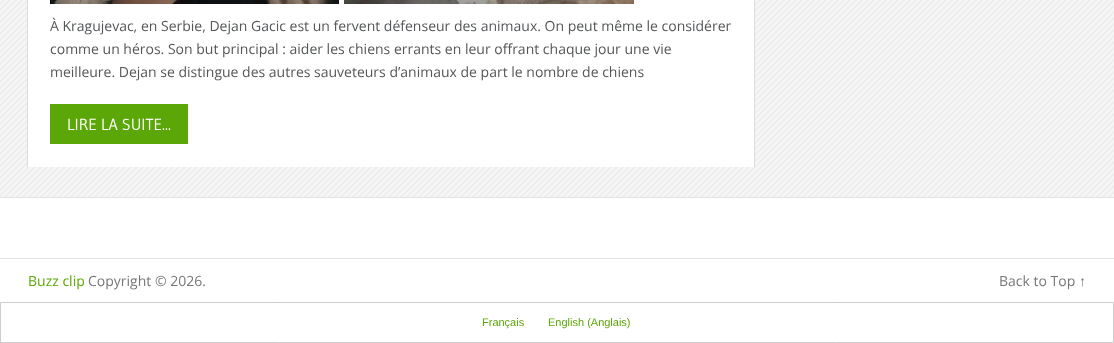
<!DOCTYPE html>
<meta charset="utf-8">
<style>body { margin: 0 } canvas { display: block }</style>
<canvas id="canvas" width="1114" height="343"></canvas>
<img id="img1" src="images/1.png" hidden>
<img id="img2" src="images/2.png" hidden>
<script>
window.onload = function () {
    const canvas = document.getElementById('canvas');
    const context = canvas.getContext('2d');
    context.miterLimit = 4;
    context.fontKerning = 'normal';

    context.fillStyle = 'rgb(246, 246, 246)';
    context.fillRect(0, 0, 1114, 343);
    context.drawImage(document.getElementById('img1'), 0, 0, 1114, 197);
    context.fillStyle = 'rgb(255, 255, 255)';
    context.fillRect(28, 0, 726, 167);
    context.fillStyle = 'rgb(220, 220, 220)';
    context.fillRect(754, 0, 1, 167);
    context.fillRect(27, 0, 1, 167);
    context.drawImage(document.getElementById('img2'), 50, 0, 584, 4);
    context.fillStyle = 'rgb(92, 167, 8)';
    context.fillRect(50, 104, 138, 40);
    context.fillStyle = 'rgb(255, 255, 255)';
    context.fillRect(0, 198, 1114, 104);
    context.fillStyle = 'rgb(226, 227, 228)';
    context.fillRect(0, 197, 1114, 1);
    context.fillRect(0, 258, 1114, 1);
    context.fillStyle = 'rgb(255, 255, 255)';
    context.beginPath();
    context.rect(0.5, 302.5, 1113, 40);
    context.fill();
    context.strokeStyle = 'rgb(205, 205, 205)';
    context.stroke();
    context.font = '14px Open Sans';
    context.fillStyle = 'rgb(84, 86, 88)';
    context.fillText('À Kragujevac, en Serbie, Dejan Gacic est un fervent défenseur des animaux. On peut même le considérer', 50, 31);
    context.fillText('comme un héros. Son but principal : aider les chiens errants en leur offrant chaque jour une vie', 50, 54);
    context.fillText('meilleure. Dejan se distingue des autres sauveteurs d’animaux de part le nombre de chiens', 50, 77);
    context.font = '16px Gudea';
    context.fillStyle = 'rgb(255, 255, 255)';
    context.fillText('LIRE LA SUITE...', 67, 130);
    context.font = '14px Open Sans';
    context.fillStyle = 'rgb(92, 167, 8)';
    context.fillText('Buzz clip', 28, 286);
    context.fillStyle = 'rgb(119, 119, 119)';
    context.fillText('Copyright © 2026.', 88, 286);
    context.fillText('Back to Top', 999, 286);
    context.font = '14px Liberation Sans';
    context.fillText('↑', 1079, 286);
    context.font = '11px Liberation Sans';
    context.fillStyle = 'rgb(92, 167, 8)';
    context.fillText('Français', 482, 326);
    context.fillText('English (Anglais)', 548, 326);
};
</script>
